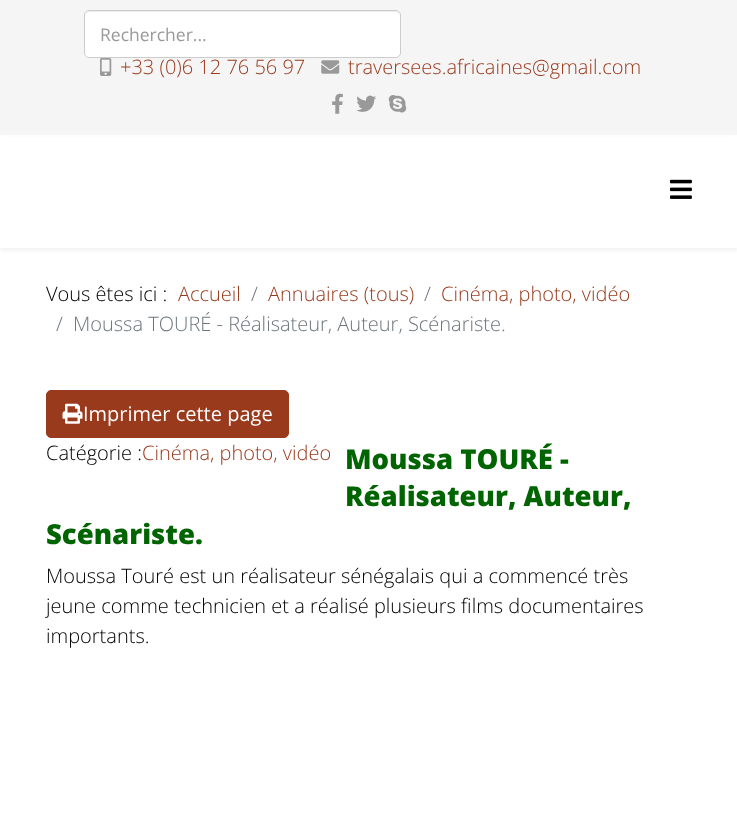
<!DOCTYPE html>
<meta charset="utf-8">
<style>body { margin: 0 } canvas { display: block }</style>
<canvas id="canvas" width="737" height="830"></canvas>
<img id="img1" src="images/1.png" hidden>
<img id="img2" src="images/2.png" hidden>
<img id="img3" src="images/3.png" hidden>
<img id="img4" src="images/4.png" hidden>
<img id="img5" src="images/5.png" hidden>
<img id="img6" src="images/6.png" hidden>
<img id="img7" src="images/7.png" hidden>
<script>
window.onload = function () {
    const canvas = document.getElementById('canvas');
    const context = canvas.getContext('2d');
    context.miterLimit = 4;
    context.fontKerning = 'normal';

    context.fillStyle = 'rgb(255, 255, 255)';
    context.fillRect(0, 0, 737, 830);
    context.fillStyle = 'rgb(245, 245, 245)';
    context.fillRect(0, 0, 737, 135);
    context.fillStyle = 'rgb(255, 255, 255)';
    context.beginPath();
    context.roundRect(84, 10, 317, 48, 5);
    context.fill();
    context.fillStyle = 'rgb(236, 236, 236)';
    context.beginPath();
    context.moveTo(89, 12);
    context.lineTo(396, 12);
    context.bezierCurveTo(398, 12, 400, 14, 400, 16);
    context.lineTo(400, 15);
    context.bezierCurveTo(400, 13, 398, 11, 396, 11);
    context.lineTo(89, 11);
    context.bezierCurveTo(87, 11, 85, 13, 85, 15);
    context.lineTo(85, 16);
    context.bezierCurveTo(85, 14, 87, 12, 89, 12);
    context.closePath();
    context.fill();
    context.beginPath();
    context.roundRect(84.5, 10.5, 316, 47, 4.5);
    context.strokeStyle = 'rgb(204, 204, 204)';
    context.stroke();
    context.drawImage(document.getElementById('img1'), 100, 58, 12, 18);
    context.drawImage(document.getElementById('img2'), 321, 60, 19, 14);
    context.drawImage(document.getElementById('img3'), 332, 93, 11, 21);
    context.drawImage(document.getElementById('img4'), 356, 95, 20, 17);
    context.drawImage(document.getElementById('img5'), 388, 95, 19, 18);
    context.fillStyle = 'rgba(0, 0, 0, 0.05)';
    context.filter = 'blur(2px)';
    context.beginPath();
    context.rect(0, 139, 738, 112);
    context.fill();
    context.filter = 'none';
    context.fillStyle = 'rgb(255, 255, 255)';
    context.fillRect(0, 137, 737, 111);
    context.drawImage(document.getElementById('img6'), 670, 179, 22, 20);
    context.fillStyle = 'rgb(153, 58, 29)';
    context.beginPath();
    context.roundRect(46.5, 390.5, 242, 47, 4.5);
    context.fill();
    context.strokeStyle = 'rgb(153, 58, 29)';
    context.stroke();
    context.drawImage(document.getElementById('img7'), 62, 403, 21, 21);
    context.font = '17.5px Open Sans';
    context.fillStyle = 'rgb(153, 153, 153)';
    context.fillText('Rechercher...', 100, 41);
    context.font = '300 20px Open Sans';
    context.fillStyle = 'rgb(153, 58, 29)';
    context.fillText('+33 (0)6 12 76 56 97', 120, 74);
    context.fillText('traversees.africaines@gmail.com', 348, 74);
    context.fillStyle = 'rgb(0, 0, 0)';
    context.fillText('Vous êtes ici :', 46, 301);
    context.fillStyle = 'rgb(153, 58, 29)';
    context.fillText('Accueil', 178, 301);
    context.fillStyle = 'rgb(108, 117, 125)';
    context.fillText('/', 251, 301);
    context.fillStyle = 'rgb(153, 58, 29)';
    context.fillText('Annuaires (tous)', 268, 301);
    context.fillStyle = 'rgb(108, 117, 125)';
    context.fillText('/', 424, 301);
    context.fillStyle = 'rgb(153, 58, 29)';
    context.fillText('Cinéma, photo, vidéo', 441, 301);
    context.fillStyle = 'rgb(108, 117, 125)';
    context.fillText('/', 56, 331);
    context.fillText('Moussa TOURÉ - Réalisateur, Auteur, Scénariste.', 73, 331);
    context.font = '20px Open Sans';
    context.fillStyle = 'rgb(255, 255, 255)';
    context.fillText('Imprimer cette page', 83, 421);
    context.font = '800 27.5px Open Sans';
    context.fillStyle = 'rgb(0, 100, 0)';
    context.fillText('Moussa TOURÉ -', 345, 469);
    context.fillText('Réalisateur, Auteur,', 345, 506);
    context.fillText('Scénariste.', 46, 544);
    context.font = '300 20px Open Sans';
    context.fillStyle = 'rgb(0, 0, 0)';
    context.fillText('Moussa Touré est un réalisateur sénégalais qui a commencé très', 46, 583);
    context.fillText('jeune comme technicien et a réalisé plusieurs films documentaires', 46, 613);
    context.fillText('importants.', 46, 643);
    context.fillText('Catégorie :', 46, 460);
    context.fillStyle = 'rgb(153, 58, 29)';
    context.fillText('Cinéma, photo, vidéo', 142, 460);
};
</script>
